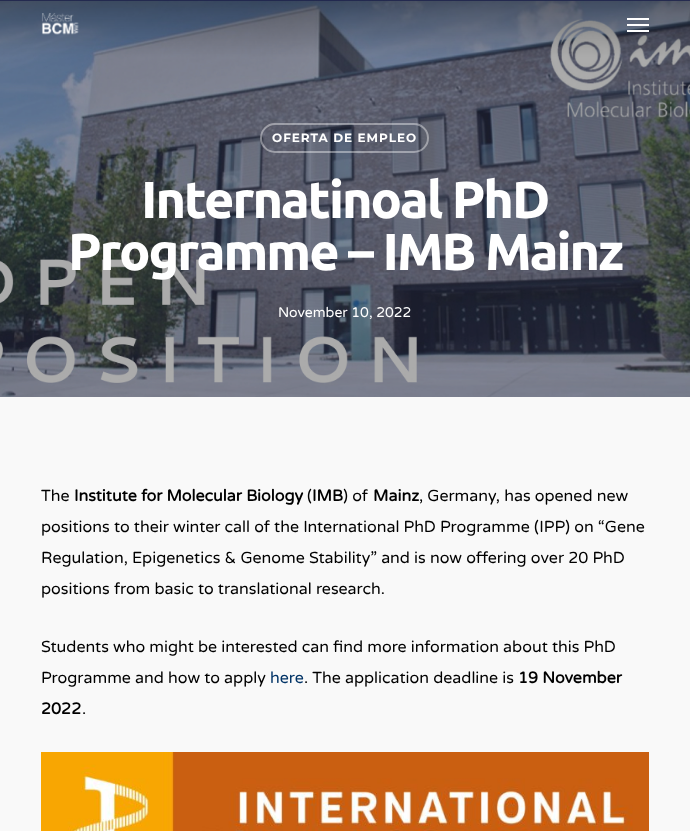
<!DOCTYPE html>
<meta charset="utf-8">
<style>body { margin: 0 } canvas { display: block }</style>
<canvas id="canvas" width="690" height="831"></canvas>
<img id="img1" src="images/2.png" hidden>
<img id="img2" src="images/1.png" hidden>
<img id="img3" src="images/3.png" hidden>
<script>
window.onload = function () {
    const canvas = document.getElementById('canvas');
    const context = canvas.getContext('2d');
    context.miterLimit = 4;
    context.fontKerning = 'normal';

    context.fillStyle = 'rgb(249, 249, 249)';
    context.fillRect(0, 0, 690, 831);
    context.drawImage(document.getElementById('img1'), 0, 0, 690, 397);
    context.drawImage(document.getElementById('img2'), 41, 13, 38, 22);
    context.fillStyle = 'rgb(255, 255, 255)';
    context.fillRect(627, 18, 22, 2);
    context.fillRect(627, 30, 22, 2);
    context.fillRect(627, 24, 22, 2);
    context.beginPath();
    context.roundRect(261, 124, 167, 28, 14);
    context.strokeStyle = 'rgba(255, 255, 255, 0.4)';
    context.lineWidth = 2;
    context.stroke();
    context.drawImage(document.getElementById('img3'), 41, 752, 608, 79);
    context.letterSpacing = '1px';
    context.font = 'bold 12px Montserrat';
    context.fillText('OFERTA DE EMPLEO', 272, 142);
    context.letterSpacing = '-2px';
    context.font = 'bold 52px Ubuntu';
    context.fillText('Internatinoal PhD', 141, 218);
    context.fillText('Programme – IMB Mainz', 68, 270);
    context.letterSpacing = '0px';
    context.font = '14px Varela Round';
    context.fillText('November 10, 2022', 278, 317);
    context.font = '16px Varela Round';
    context.fillStyle = 'rgb(0, 0, 0)';
    context.fillText('The', 41, 501);
    context.font = 'bold 16px Varela Round';
    context.fillText('Institute for Molecular Biology', 74, 501);
    context.font = '16px Varela Round';
    context.fillText('(', 307, 501);
    context.font = 'bold 16px Varela Round';
    context.fillText('IMB', 312, 501);
    context.font = '16px Varela Round';
    context.fillText(') of', 343, 501);
    context.font = 'bold 16px Varela Round';
    context.fillText('Mainz', 373, 501);
    context.font = '16px Varela Round';
    context.fillText(', Germany, has opened new', 419, 501);
    context.fillText('positions to their winter call of the International PhD Programme (IPP) on “Gene', 41, 532);
    context.fillText('Regulation, Epigenetics & Genome Stability” and is now offering over 20 PhD', 41, 563);
    context.fillText('positions from basic to translational research.', 41, 594);
    context.fillText('Students who might be interested can find more information about this PhD', 41, 652);
    context.fillText('Programme and how to apply', 41, 683);
    context.fillStyle = 'rgb(0, 51, 102)';
    context.fillText('here', 270, 683);
    context.fillStyle = 'rgb(0, 0, 0)';
    context.fillText('. The application deadline is', 304, 683);
    context.font = 'bold 16px Varela Round';
    context.fillText('19 November', 518, 683);
    context.fillText('2022', 41, 714);
    context.font = '16px Varela Round';
    context.fillText('.', 82, 714);
};
</script>
